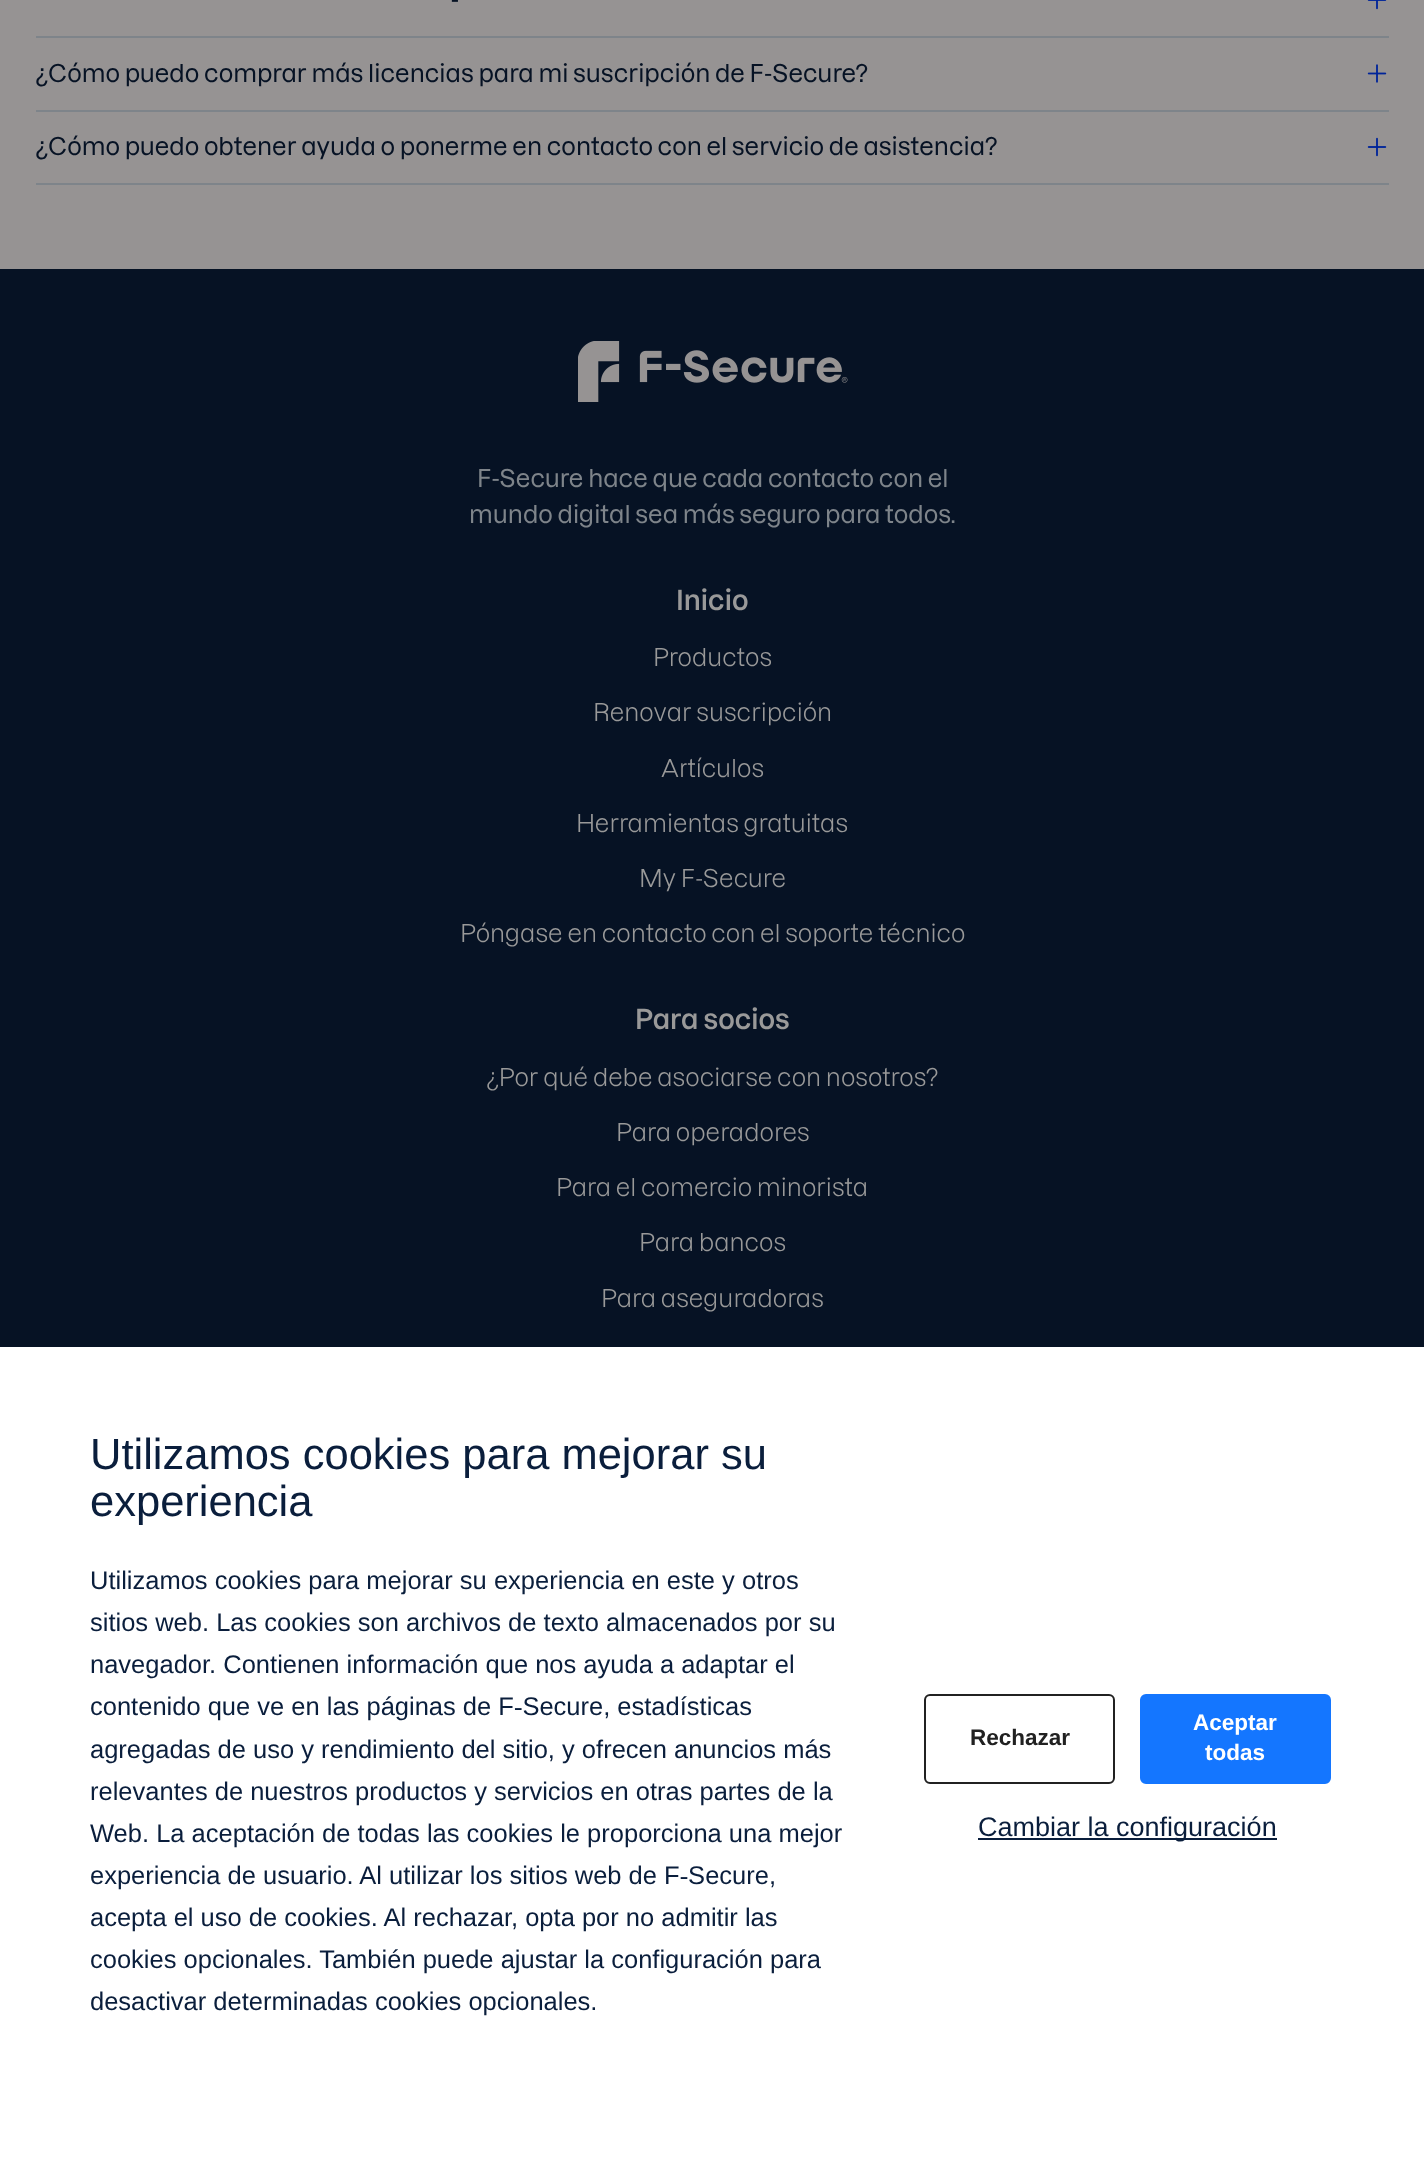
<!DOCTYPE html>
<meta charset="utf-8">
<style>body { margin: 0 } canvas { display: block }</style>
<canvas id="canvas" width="1424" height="2178"></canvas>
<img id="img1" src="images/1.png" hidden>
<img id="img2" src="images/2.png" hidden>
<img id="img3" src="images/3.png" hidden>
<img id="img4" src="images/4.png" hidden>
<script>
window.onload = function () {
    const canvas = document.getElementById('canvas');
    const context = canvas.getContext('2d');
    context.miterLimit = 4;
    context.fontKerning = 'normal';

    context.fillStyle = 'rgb(150, 147, 147)';
    context.fillRect(0, 0, 1424, 2178);
    context.fillStyle = 'rgb(126, 132, 138)';
    context.fillRect(36, 36, 1353, 2);
    context.drawImage(document.getElementById('img1'), 1367, 0, 20, 10);
    context.fillRect(36, 110, 1353, 2);
    context.drawImage(document.getElementById('img2'), 1367, 64, 20, 19);
    context.fillRect(36, 183, 1353, 2);
    context.drawImage(document.getElementById('img3'), 1367, 137, 20, 20);
    context.fillStyle = 'rgb(6, 18, 36)';
    context.fillRect(0, 269, 1424, 1078);
    context.drawImage(document.getElementById('img4'), 578, 341, 270, 61);
    context.fillStyle = 'rgb(255, 255, 255)';
    context.fillRect(0, 1347, 1424, 831);
    context.beginPath();
    context.roundRect(925, 1695, 189, 88, 5);
    context.strokeStyle = 'rgb(33, 33, 33)';
    context.lineWidth = 2;
    context.stroke();
    context.fillStyle = 'rgb(20, 118, 255)';
    context.beginPath();
    context.roundRect(1141, 1695, 189, 88, 5);
    context.fill();
    context.strokeStyle = 'rgb(20, 118, 255)';
    context.stroke();
    context.fillStyle = 'rgb(10, 30, 60)';
    context.fillRect(978, 1838, 299, 2);
    context.font = '500 24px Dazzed';
    context.fillStyle = 'rgb(6, 18, 36)';
    context.fillText('‑', 451, 8);
    context.fillText('¿Cómo puedo comprar más licencias para mi suscripción de F‑Secure?', 36, 82);
    context.fillText('¿Cómo puedo obtener ayuda o ponerme en contacto con el servicio de asistencia?', 36, 155);
    context.fillStyle = 'rgb(126, 132, 138)';
    context.fillText('F‑Secure hace que cada contacto con el', 477, 487);
    context.fillText('mundo digital sea más seguro para todos.', 469, 523);
    context.font = '600 27px Dazzed';
    context.fillStyle = 'rgb(153, 153, 153)';
    context.fillText('Inicio', 676, 610);
    context.font = '24px Dazzed';
    context.fillText('Productos', 653, 666);
    context.fillText('Renovar suscripción', 593, 721);
    context.fillText('Artículos', 661, 777);
    context.fillText('Herramientas gratuitas', 576, 832);
    context.fillText('My F‑Secure', 639, 887);
    context.fillText('Póngase en contacto con el soporte técnico', 460, 942);
    context.font = '600 27px Dazzed';
    context.fillText('Para socios', 635, 1029);
    context.font = '24px Dazzed';
    context.fillText('¿Por qué debe asociarse con nosotros?', 487, 1086);
    context.fillText('Para operadores', 616, 1141);
    context.fillText('Para el comercio minorista', 556, 1196);
    context.fillText('Para bancos', 639, 1251);
    context.fillText('Para aseguradoras', 601, 1307);
    context.font = '43.5px Liberation Sans';
    context.fillStyle = 'rgb(10, 30, 60)';
    context.fillText('Utilizamos cookies para mejorar su', 90, 1469);
    context.fillText('experiencia', 90, 1516);
    context.font = '25.5px Liberation Sans';
    context.fillText('Utilizamos cookies para mejorar su experiencia en este y otros', 90, 1589);
    context.fillText('sitios web. Las cookies son archivos de texto almacenados por su', 90, 1631);
    context.fillText('navegador. Contienen información que nos ayuda a adaptar el', 90, 1673);
    context.fillText('contenido que ve en las páginas de F‑Secure, estadísticas', 90, 1715);
    context.fillText('agregadas de uso y rendimiento del sitio, y ofrecen anuncios más', 90, 1758);
    context.fillText('relevantes de nuestros productos y servicios en otras partes de la', 90, 1800);
    context.fillText('Web. La aceptación de todas las cookies le proporciona una mejor', 90, 1842);
    context.fillText('experiencia de usuario. Al utilizar los sitios web de F‑Secure,', 90, 1884);
    context.fillText('acepta el uso de cookies. Al rechazar, opta por no admitir las', 90, 1926);
    context.fillText('cookies opcionales. También puede ajustar la configuración para', 90, 1968);
    context.fillText('desactivar determinadas cookies opcionales.', 90, 2010);
    context.font = 'bold 22.5px Liberation Sans';
    context.fillStyle = 'rgb(33, 33, 33)';
    context.fillText('Rechazar', 970, 1745);
    context.fillStyle = 'rgb(255, 255, 255)';
    context.fillText('Aceptar', 1193, 1730);
    context.fillText('todas', 1205, 1760);
    context.font = '27px Liberation Sans';
    context.fillStyle = 'rgb(10, 30, 60)';
    context.fillText('Cambiar la configuración', 978, 1836);
};
</script>
